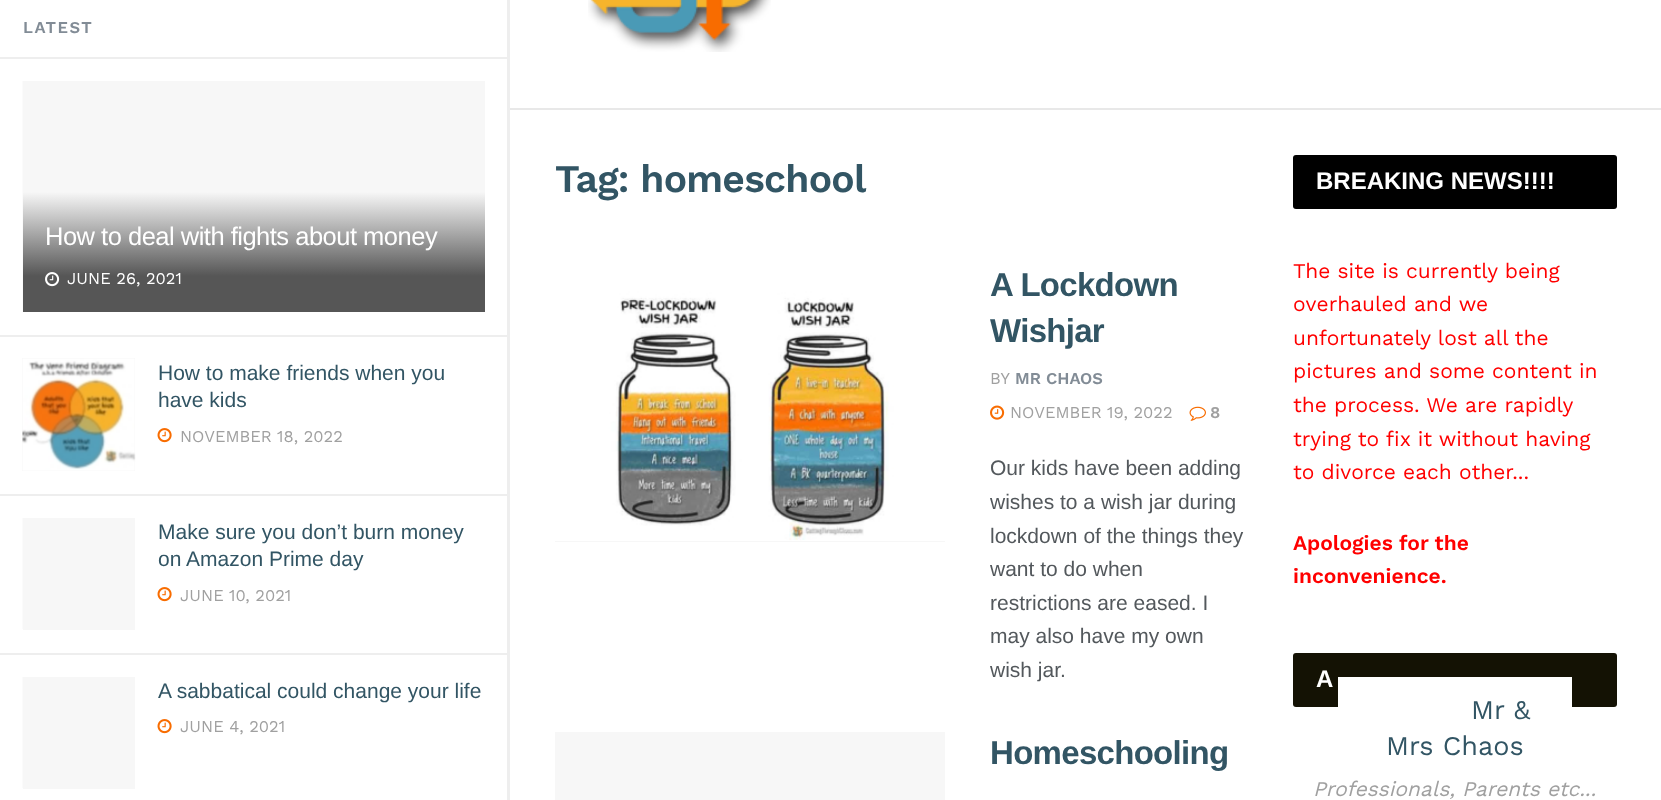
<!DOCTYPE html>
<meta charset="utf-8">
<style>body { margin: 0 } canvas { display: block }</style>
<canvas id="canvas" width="1661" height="800"></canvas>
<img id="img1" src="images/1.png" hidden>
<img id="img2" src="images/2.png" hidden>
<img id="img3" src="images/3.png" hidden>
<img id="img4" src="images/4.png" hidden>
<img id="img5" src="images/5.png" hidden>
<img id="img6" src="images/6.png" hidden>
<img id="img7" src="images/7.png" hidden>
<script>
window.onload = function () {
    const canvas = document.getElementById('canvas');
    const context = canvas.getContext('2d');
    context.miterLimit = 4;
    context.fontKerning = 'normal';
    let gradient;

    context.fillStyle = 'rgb(255, 255, 255)';
    context.fillRect(0, 0, 1661, 800);
    context.fillStyle = 'rgb(238, 238, 238)';
    context.fillRect(507, 0, 3, 800);
    context.fillRect(0, 57, 507, 2);
    context.fillRect(0, 335, 507, 2);
    context.fillStyle = 'rgb(247, 247, 247)';
    context.fillRect(23, 81, 462, 111);
    context.fillStyle = 'rgb(251, 251, 251)';
    context.fillRect(22, 81, 1, 231);
    gradient = context.createLinearGradient(254, 192, 254, 312);
    gradient.addColorStop(0, 'rgb(247, 247, 247)');
    gradient.addColorStop(0.7, 'rgb(86, 86, 86)');
    context.fillStyle = gradient;
    context.fillRect(23, 192, 462, 120);
    context.drawImage(document.getElementById('img1'), 45, 272, 15, 15);
    context.fillStyle = 'rgb(238, 238, 238)';
    context.fillRect(0, 494, 507, 2);
    context.fillStyle = 'rgb(247, 247, 247)';
    context.fillRect(22, 358, 113, 113);
    context.drawImage(document.getElementById('img2'), 22, 358, 114, 113);
    context.drawImage(document.getElementById('img3'), 157, 428, 15, 15);
    context.fillStyle = 'rgb(238, 238, 238)';
    context.fillRect(0, 653, 507, 2);
    context.fillStyle = 'rgb(247, 247, 247)';
    context.fillRect(23, 518, 112, 112);
    context.fillStyle = 'rgb(251, 251, 251)';
    context.fillRect(22, 518, 1, 111);
    context.drawImage(document.getElementById('img3'), 157, 587, 15, 15);
    context.fillStyle = 'rgb(247, 247, 247)';
    context.fillRect(23, 677, 112, 112);
    context.fillStyle = 'rgb(251, 251, 251)';
    context.fillRect(22, 677, 1, 111);
    context.drawImage(document.getElementById('img3'), 157, 719, 15, 15);
    context.fillStyle = 'rgb(232, 232, 232)';
    context.fillRect(510, 108, 1151, 2);
    context.drawImage(document.getElementById('img4'), 588, 0, 183, 52);
    context.fillStyle = 'rgb(247, 247, 247)';
    context.fillRect(555, 541, 390, 1);
    context.drawImage(document.getElementById('img5'), 555, 264, 390, 277);
    context.drawImage(document.getElementById('img6'), 990, 405, 15, 15);
    context.drawImage(document.getElementById('img7'), 1189, 406, 17, 15);
    context.fillRect(555, 732, 390, 68);
    context.fillStyle = 'rgb(0, 0, 0)';
    context.beginPath();
    context.roundRect(1293, 155, 324, 54, 3);
    context.fill();
    context.fillStyle = 'rgb(20, 18, 4)';
    context.beginPath();
    context.roundRect(1293, 653, 324, 54, 3);
    context.fill();
    context.fillStyle = 'rgb(255, 255, 255)';
    context.fillRect(1338, 677, 234, 30);
    context.letterSpacing = '1.5px';
    context.font = '600 16.5px Work Sans';
    context.fillStyle = 'rgb(130, 140, 150)';
    context.fillText('LATEST', 23, 33);
    context.letterSpacing = '-0.5px';
    context.font = '25.5px Liberation Sans';
    context.fillStyle = 'rgb(255, 255, 255)';
    context.fillText('How to deal with fights about money', 45, 245);
    context.letterSpacing = '0px';
    context.font = '16.5px Work Sans';
    context.fillText('JUNE 26, 2021', 67, 284);
    context.font = '21px Liberation Sans';
    context.fillStyle = 'rgb(50, 85, 100)';
    context.fillText('How to make friends when you', 158, 380);
    context.fillText('have kids', 158, 407);
    context.font = '16.5px Work Sans';
    context.fillStyle = 'rgb(160, 160, 160)';
    context.fillText('NOVEMBER 18, 2022', 180, 442);
    context.font = '21px Liberation Sans';
    context.fillStyle = 'rgb(50, 85, 100)';
    context.fillText('Make sure you don’t burn money', 158, 539);
    context.fillText('on Amazon Prime day', 158, 566);
    context.font = '16.5px Work Sans';
    context.fillStyle = 'rgb(160, 160, 160)';
    context.fillText('JUNE 10, 2021', 180, 601);
    context.font = '21px Liberation Sans';
    context.fillStyle = 'rgb(50, 85, 100)';
    context.fillText('A sabbatical could change your life', 158, 698);
    context.font = '16.5px Work Sans';
    context.fillStyle = 'rgb(160, 160, 160)';
    context.fillText('JUNE 4, 2021', 180, 732);
    context.letterSpacing = '-0.75px';
    context.font = '600 39px Work Sans';
    context.fillStyle = 'rgb(50, 85, 100)';
    context.fillText('Tag: homeschool', 555, 192);
    context.letterSpacing = '-0.7px';
    context.font = 'bold 33px Liberation Sans';
    context.fillText('A Lockdown', 990, 296);
    context.fillText('Wishjar', 990, 342);
    context.letterSpacing = '0px';
    context.font = '16.5px Work Sans';
    context.fillStyle = 'rgb(160, 160, 160)';
    context.fillText('BY', 990, 384);
    context.font = '600 16.5px Work Sans';
    context.fillStyle = 'rgb(130, 140, 150)';
    context.fillText('MR CHAOS', 1015, 384);
    context.font = '16.5px Work Sans';
    context.fillStyle = 'rgb(160, 160, 160)';
    context.fillText('NOVEMBER 19, 2022', 1010, 418);
    context.font = '600 16.5px Work Sans';
    context.fillText('8', 1210, 418);
    context.font = '21px Liberation Sans';
    context.fillStyle = 'rgb(83, 88, 92)';
    context.fillText('Our kids have been adding', 990, 475);
    context.fillText('wishes to a wish jar during', 990, 509);
    context.fillText('lockdown of the things they', 990, 543);
    context.fillText('want to do when', 990, 576);
    context.fillText('restrictions are eased. I', 990, 610);
    context.fillText('may also have my own', 990, 643);
    context.fillText('wish jar.', 990, 677);
    context.letterSpacing = '-0.7px';
    context.font = 'bold 33px Liberation Sans';
    context.fillStyle = 'rgb(50, 85, 100)';
    context.fillText('Homeschooling', 990, 764);
    context.letterSpacing = '0px';
    context.font = 'bold 24px Liberation Sans';
    context.fillStyle = 'rgb(255, 255, 255)';
    context.fillText('BREAKING NEWS!!!!', 1316, 189);
    context.font = '21px Work Sans';
    context.fillStyle = 'rgb(255, 0, 0)';
    context.fillText('The site is currently being', 1293, 278);
    context.fillText('overhauled and we', 1293, 311);
    context.fillText('unfortunately lost all the', 1293, 345);
    context.fillText('pictures and some content in', 1293, 378);
    context.fillText('the process. We are rapidly', 1293, 412);
    context.fillText('trying to fix it without having', 1293, 446);
    context.fillText('to divorce each other...', 1293, 479);
    context.font = '600 21px Work Sans';
    context.fillText('Apologies for the', 1293, 550);
    context.fillText('inconvenience.', 1293, 583);
    context.font = 'bold 24px Liberation Sans';
    context.fillStyle = 'rgb(255, 255, 255)';
    context.fillText('A', 1316, 687);
    context.font = '27px Work Sans';
    context.fillStyle = 'rgb(50, 85, 100)';
    context.fillText('Mr &', 1471, 719);
    context.fillText('Mrs Chaos', 1386, 755);
    context.font = 'italic 21px Work Sans';
    context.fillStyle = 'rgb(160, 160, 160)';
    context.fillText('Professionals, Parents etc...', 1313, 796);
};
</script>
